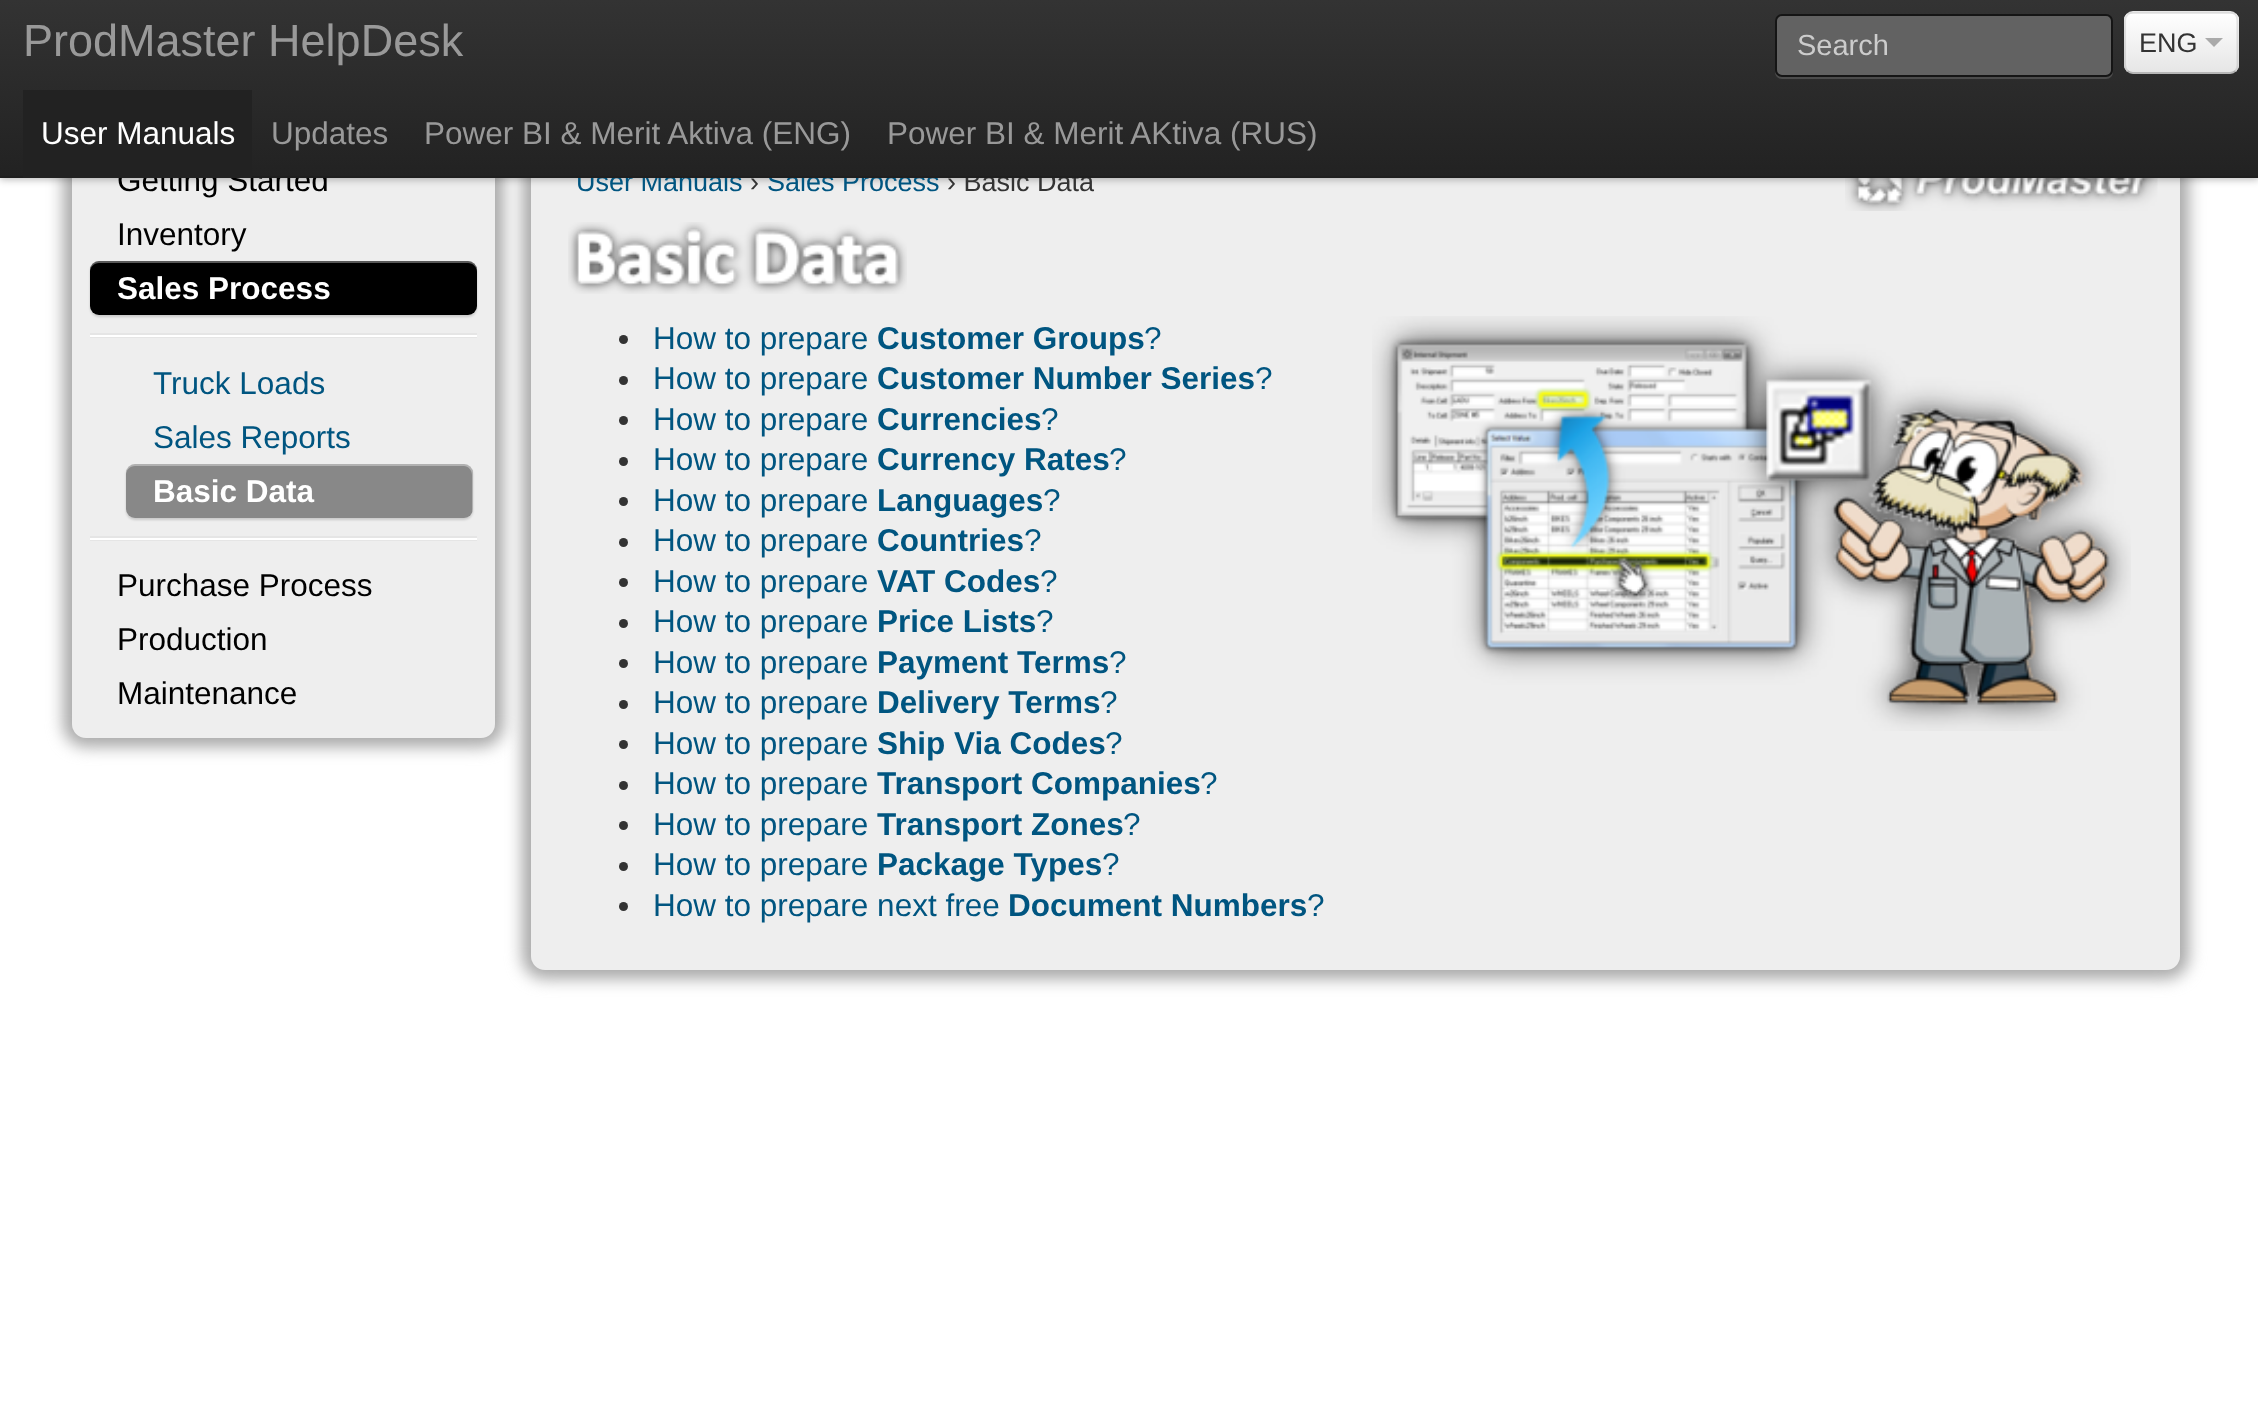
<!DOCTYPE html>
<meta charset="utf-8">
<style>body { margin: 0 } canvas { display: block }</style>
<canvas id="canvas" width="2258" height="1427"></canvas>
<img id="img1" src="images/1.png" hidden>
<img id="img2" src="images/2.png" hidden>
<img id="img3" src="images/3.png" hidden>
<script>
window.onload = function () {
    const canvas = document.getElementById('canvas');
    const context = canvas.getContext('2d');
    context.miterLimit = 4;
    context.fontKerning = 'normal';
    let gradient;

    context.fillStyle = 'rgb(255, 255, 255)';
    context.fillRect(0, 0, 2258, 1427);
    context.fillStyle = 'rgb(169, 169, 169)';
    context.filter = 'blur(8px)';
    context.beginPath();
    context.roundRect(63, 126, 441, 621, 23);
    context.fill();
    context.filter = 'none';
    context.fillStyle = 'rgb(238, 238, 238)';
    context.beginPath();
    context.roundRect(72, 135, 423, 603, 14);
    context.fill();
    context.fillStyle = 'rgb(169, 169, 169)';
    context.filter = 'blur(8px)';
    context.beginPath();
    context.roundRect(522, 126, 1667, 853, 23);
    context.fill();
    context.filter = 'none';
    context.fillStyle = 'rgb(238, 238, 238)';
    context.beginPath();
    context.roundRect(531, 135, 1649, 835, 14);
    context.fill();
    context.drawImage(document.getElementById('img1'), 1845, 178, 313, 33);
    context.fillStyle = 'rgba(0, 0, 0, 0.25)';
    context.filter = 'blur(3.5px)';
    context.beginPath();
    context.rect(0, 2, 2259, 178);
    context.fill();
    context.filter = 'none';
    context.fillStyle = 'rgba(0, 0, 0, 0.15)';
    context.filter = 'blur(1px)';
    context.beginPath();
    context.roundRect(90, 263, 387, 54, 9);
    context.fill();
    context.filter = 'none';
    context.fillStyle = 'rgb(0, 0, 0)';
    context.beginPath();
    context.roundRect(90, 261, 387, 54, 9);
    context.fill();
    context.fillStyle = 'rgba(255, 255, 255, 0.35)';
    context.beginPath();
    context.moveTo(99, 263);
    context.lineTo(468, 263);
    context.bezierCurveTo(473, 263, 477, 267, 477, 272);
    context.lineTo(477, 270);
    context.bezierCurveTo(477, 265, 473, 261, 468, 261);
    context.lineTo(99, 261);
    context.bezierCurveTo(94, 261, 90, 265, 90, 270);
    context.lineTo(90, 272);
    context.bezierCurveTo(90, 267, 94, 263, 99, 263);
    context.closePath();
    context.fill();
    context.fillStyle = 'rgb(229, 229, 229)';
    context.fillRect(90, 333, 387, 5);
    context.fillStyle = 'rgb(255, 255, 255)';
    context.fillRect(90, 335, 387, 2);
    context.fillStyle = 'rgba(0, 0, 0, 0.15)';
    context.filter = 'blur(1px)';
    context.beginPath();
    context.roundRect(126, 466, 347, 54, 9);
    context.fill();
    context.filter = 'none';
    context.fillStyle = 'rgb(136, 136, 136)';
    context.beginPath();
    context.roundRect(126, 464, 347, 54, 9);
    context.fill();
    context.fillStyle = 'rgba(255, 255, 255, 0.35)';
    context.beginPath();
    context.moveTo(135, 466);
    context.lineTo(464, 466);
    context.bezierCurveTo(468, 466, 472, 470, 472, 475);
    context.lineTo(472, 511);
    context.lineTo(472, 514);
    context.bezierCurveTo(472, 513, 473, 511, 473, 509);
    context.lineTo(473, 473);
    context.bezierCurveTo(473, 468, 469, 464, 464, 464);
    context.lineTo(135, 464);
    context.bezierCurveTo(130, 464, 126, 468, 126, 473);
    context.lineTo(126, 475);
    context.bezierCurveTo(126, 470, 130, 466, 135, 466);
    context.closePath();
    context.fill();
    context.fillStyle = 'rgb(229, 229, 229)';
    context.fillRect(90, 536, 387, 5);
    context.fillStyle = 'rgb(255, 255, 255)';
    context.fillRect(90, 538, 387, 2);
    context.drawImage(document.getElementById('img2'), 568, 222, 339, 72);
    context.fillStyle = 'rgb(51, 51, 51)';
    context.beginPath();
    context.arc(623.5, 339.5, 4.5, 0, 2 * Math.PI);
    context.fill();
    context.beginPath();
    context.arc(623.5, 380.5, 4.5, 0, 2 * Math.PI);
    context.fill();
    context.beginPath();
    context.arc(623.5, 420.5, 4.5, 0, 2 * Math.PI);
    context.fill();
    context.beginPath();
    context.arc(623.5, 461.5, 4.5, 0, 2 * Math.PI);
    context.fill();
    context.beginPath();
    context.arc(623.5, 501.5, 4.5, 0, 2 * Math.PI);
    context.fill();
    context.beginPath();
    context.arc(623.5, 542.5, 4.5, 0, 2 * Math.PI);
    context.fill();
    context.beginPath();
    context.arc(623.5, 582.5, 4.5, 0, 2 * Math.PI);
    context.fill();
    context.beginPath();
    context.arc(623.5, 623.5, 4.5, 0, 2 * Math.PI);
    context.fill();
    context.beginPath();
    context.arc(623.5, 663.5, 4.5, 0, 2 * Math.PI);
    context.fill();
    context.beginPath();
    context.arc(623.5, 704.5, 4.5, 0, 2 * Math.PI);
    context.fill();
    context.beginPath();
    context.arc(623.5, 744.5, 4.5, 0, 2 * Math.PI);
    context.fill();
    context.beginPath();
    context.arc(623.5, 785.5, 4.5, 0, 2 * Math.PI);
    context.fill();
    context.beginPath();
    context.arc(623.5, 825.5, 4.5, 0, 2 * Math.PI);
    context.fill();
    context.beginPath();
    context.arc(623.5, 866.5, 4.5, 0, 2 * Math.PI);
    context.fill();
    context.beginPath();
    context.arc(623.5, 906.5, 4.5, 0, 2 * Math.PI);
    context.fill();
    context.drawImage(document.getElementById('img3'), 1372, 316, 759, 415);
    context.font = '31.5px Liberation Sans';
    context.fillStyle = 'rgb(0, 0, 0)';
    context.fillText('Getting Started', 117, 191);
    context.fillText('Inventory', 117, 245);
    context.font = 'bold 31.5px Liberation Sans';
    context.fillStyle = 'rgb(255, 255, 255)';
    context.fillText('Sales Process', 117, 299);
    context.font = '31.5px Liberation Sans';
    context.fillStyle = 'rgb(0, 85, 128)';
    context.fillText('Truck Loads', 153, 394);
    context.fillText('Sales Reports', 153, 448);
    context.font = 'bold 31.5px Liberation Sans';
    context.fillStyle = 'rgb(255, 255, 255)';
    context.fillText('Basic Data', 153, 502);
    context.font = '31.5px Liberation Sans';
    context.fillStyle = 'rgb(0, 0, 0)';
    context.fillText('Purchase Process', 117, 596);
    context.fillText('Production', 117, 650);
    context.fillText('Maintenance', 117, 704);
    context.font = '27px Liberation Sans';
    context.fillStyle = 'rgb(0, 85, 128)';
    context.fillText('User Manuals', 576, 191);
    context.fillStyle = 'rgb(51, 51, 51)';
    context.fillText('›', 750, 191);
    context.fillStyle = 'rgb(0, 85, 128)';
    context.fillText('Sales Process', 767, 191);
    context.fillStyle = 'rgb(51, 51, 51)';
    context.fillText('› Basic Data', 947, 191);
    gradient = context.createLinearGradient(1130, 0, 1130, 178);
    gradient.addColorStop(0, 'rgb(51, 51, 51)');
    gradient.addColorStop(1, 'rgb(34, 34, 34)');
    context.fillStyle = gradient;
    context.fillRect(0, 0, 2258, 176);
    context.font = '31.5px Liberation Sans';
    context.fillStyle = 'rgb(153, 153, 153)';
    context.fillText('Power BI & Merit AKtiva (RUS)', 887, 144);
    context.fillText('Power BI & Merit Aktiva (ENG)', 424, 144);
    context.fillText('Updates', 271, 144);
    context.fillStyle = 'rgb(31, 31, 31)';
    context.fillRect(0, 176, 2258, 2);
    context.fillStyle = 'rgb(34, 34, 34)';
    context.fillRect(23, 90, 229, 88);
    context.fillStyle = 'rgb(255, 255, 255)';
    context.fillText('User Manuals', 41, 144);
    context.fillStyle = 'rgb(76, 76, 76)';
    context.beginPath();
    context.moveTo(1775, 21);
    context.lineTo(1775, 72);
    context.bezierCurveTo(1775, 76, 1778, 79, 1782, 79);
    context.lineTo(2106, 79);
    context.bezierCurveTo(2110, 79, 2113, 76, 2113, 72);
    context.lineTo(2113, 21);
    context.lineTo(2113, 70);
    context.bezierCurveTo(2113, 73, 2110, 76, 2106, 76);
    context.lineTo(1782, 76);
    context.bezierCurveTo(1778, 76, 1775, 73, 1775, 70);
    context.closePath();
    context.fill();
    context.fillStyle = 'rgb(98, 98, 98)';
    context.beginPath();
    context.roundRect(1776, 15, 336, 61, 6);
    context.fill();
    context.strokeStyle = 'rgb(21, 21, 21)';
    context.lineWidth = 2;
    context.stroke();
    context.font = '29px Liberation Sans';
    context.fillStyle = 'rgb(204, 204, 204)';
    context.fillText('Search', 1797, 55);
    context.fillStyle = 'rgb(245, 245, 245)';
    context.beginPath();
    context.roundRect(2124, 11, 115, 63, 9);
    context.fill();
    context.save();
    context.beginPath();
    context.roundRect(2124, 11, 115, 63, 9);
    context.clip();
    gradient = context.createLinearGradient(2181, 13, 2181, 72);
    gradient.addColorStop(0, 'rgb(255, 255, 255)');
    gradient.addColorStop(1, 'rgb(230, 230, 230)');
    context.fillStyle = gradient;
    context.fillRect(2124, 14, 115, 58);
    context.restore();
    context.fillStyle = 'rgba(255, 255, 255, 0.2)';
    context.beginPath();
    context.moveTo(2133, 16);
    context.lineTo(2214, 16);
    context.bezierCurveTo(2239, 16, 2236, 14, 2236, 37);
    context.lineTo(2236, 69);
    context.bezierCurveTo(2237, 68, 2237, 66, 2237, 65);
    context.lineTo(2237, 21);
    context.bezierCurveTo(2237, 17, 2234, 14, 2230, 14);
    context.lineTo(2133, 14);
    context.bezierCurveTo(2129, 14, 2126, 17, 2126, 21);
    context.lineTo(2126, 22);
    context.bezierCurveTo(2126, 19, 2129, 16, 2133, 16);
    context.closePath();
    context.fill();
    context.fillStyle = 'rgba(255, 255, 255, 0.12)';
    context.beginPath();
    context.moveTo(2133, 14);
    context.bezierCurveTo(2129, 14, 2126, 17, 2126, 21);
    context.lineTo(2126, 65);
    context.bezierCurveTo(2126, 69, 2129, 72, 2133, 72);
    context.lineTo(2135, 72);
    context.bezierCurveTo(2132, 72, 2128, 69, 2128, 65);
    context.lineTo(2128, 20);
    context.bezierCurveTo(2128, 17, 2132, 14, 2135, 14);
    context.closePath();
    context.fill();
    context.beginPath();
    context.moveTo(2235.5, 71);
    context.bezierCurveTo(2234, 72.5, 2232, 73, 2230, 73);
    context.lineTo(2133, 73);
    context.bezierCurveTo(2131, 73, 2129, 72.5, 2127.5, 71);
    context.strokeStyle = 'rgba(0, 0, 0, 0.25)';
    context.lineWidth = 2.2;
    context.stroke();
    context.beginPath();
    context.moveTo(2127.5, 71);
    context.bezierCurveTo(2126, 69.5, 2125, 67.5, 2125, 65);
    context.lineTo(2125, 20.5);
    context.bezierCurveTo(2125, 18, 2126, 16, 2127.5, 14.5);
    context.bezierCurveTo(2129, 13, 2131, 12.5, 2133, 12.5);
    context.lineTo(2230, 12.5);
    context.bezierCurveTo(2232, 12.5, 2234, 13, 2235.5, 14.5);
    context.bezierCurveTo(2237, 16, 2237.5, 18, 2237.5, 20);
    context.lineTo(2237.5, 65);
    context.bezierCurveTo(2237.5, 67.5, 2237, 69.5, 2235.5, 71);
    context.strokeStyle = 'rgba(0, 0, 0, 0.1)';
    context.stroke();
    context.fillStyle = 'rgba(0, 0, 0, 0.3)';
    context.beginPath();
    context.moveTo(2205, 38);
    context.lineTo(2223, 38);
    context.lineTo(2214, 47);
    context.closePath();
    context.fill();
    context.font = '27px Liberation Sans';
    context.fillStyle = 'rgb(51, 51, 51)';
    context.fillText('ENG', 2139, 52);
    context.font = '45px Liberation Sans';
    context.fillStyle = 'rgb(153, 153, 153)';
    context.fillText('ProdMaster HelpDesk', 23, 56);
    context.font = '31.5px Liberation Sans';
    context.fillStyle = 'rgb(0, 85, 128)';
    context.fillText('How to prepare', 653, 349);
    context.font = 'bold 31.5px Liberation Sans';
    context.fillText('Customer Groups', 877, 349);
    context.font = '31.5px Liberation Sans';
    context.fillText('?', 1144, 349);
    context.fillText('How to prepare', 653, 389);
    context.font = 'bold 31.5px Liberation Sans';
    context.fillText('Customer Number Series', 877, 389);
    context.font = '31.5px Liberation Sans';
    context.fillText('?', 1255, 389);
    context.fillText('How to prepare', 653, 430);
    context.font = 'bold 31.5px Liberation Sans';
    context.fillText('Currencies', 877, 430);
    context.font = '31.5px Liberation Sans';
    context.fillText('?', 1041, 430);
    context.fillText('How to prepare', 653, 470);
    context.font = 'bold 31.5px Liberation Sans';
    context.fillText('Currency Rates', 877, 470);
    context.font = '31.5px Liberation Sans';
    context.fillText('?', 1109, 470);
    context.fillText('How to prepare', 653, 511);
    context.font = 'bold 31.5px Liberation Sans';
    context.fillText('Languages', 877, 511);
    context.font = '31.5px Liberation Sans';
    context.fillText('?', 1043, 511);
    context.fillText('How to prepare', 653, 551);
    context.font = 'bold 31.5px Liberation Sans';
    context.fillText('Countries', 877, 551);
    context.font = '31.5px Liberation Sans';
    context.fillText('?', 1024, 551);
    context.fillText('How to prepare', 653, 592);
    context.font = 'bold 31.5px Liberation Sans';
    context.fillText('VAT Codes', 877, 592);
    context.font = '31.5px Liberation Sans';
    context.fillText('?', 1040, 592);
    context.fillText('How to prepare', 653, 632);
    context.font = 'bold 31.5px Liberation Sans';
    context.fillText('Price Lists', 877, 632);
    context.font = '31.5px Liberation Sans';
    context.fillText('?', 1036, 632);
    context.fillText('How to prepare', 653, 673);
    context.font = 'bold 31.5px Liberation Sans';
    context.fillText('Payment Terms', 877, 673);
    context.font = '31.5px Liberation Sans';
    context.fillText('?', 1109, 673);
    context.fillText('How to prepare', 653, 713);
    context.font = 'bold 31.5px Liberation Sans';
    context.fillText('Delivery Terms', 877, 713);
    context.font = '31.5px Liberation Sans';
    context.fillText('?', 1100, 713);
    context.fillText('How to prepare', 653, 754);
    context.font = 'bold 31.5px Liberation Sans';
    context.fillText('Ship Via Codes', 877, 754);
    context.font = '31.5px Liberation Sans';
    context.fillText('?', 1105, 754);
    context.fillText('How to prepare', 653, 794);
    context.font = 'bold 31.5px Liberation Sans';
    context.fillText('Transport Companies', 877, 794);
    context.font = '31.5px Liberation Sans';
    context.fillText('?', 1200, 794);
    context.fillText('How to prepare', 653, 835);
    context.font = 'bold 31.5px Liberation Sans';
    context.fillText('Transport Zones', 877, 835);
    context.font = '31.5px Liberation Sans';
    context.fillText('?', 1123, 835);
    context.fillText('How to prepare', 653, 875);
    context.font = 'bold 31.5px Liberation Sans';
    context.fillText('Package Types', 877, 875);
    context.font = '31.5px Liberation Sans';
    context.fillText('?', 1102, 875);
    context.fillText('How to prepare next free', 653, 916);
    context.font = 'bold 31.5px Liberation Sans';
    context.fillText('Document Numbers', 1008, 916);
    context.font = '31.5px Liberation Sans';
    context.fillText('?', 1307, 916);
};
</script>
